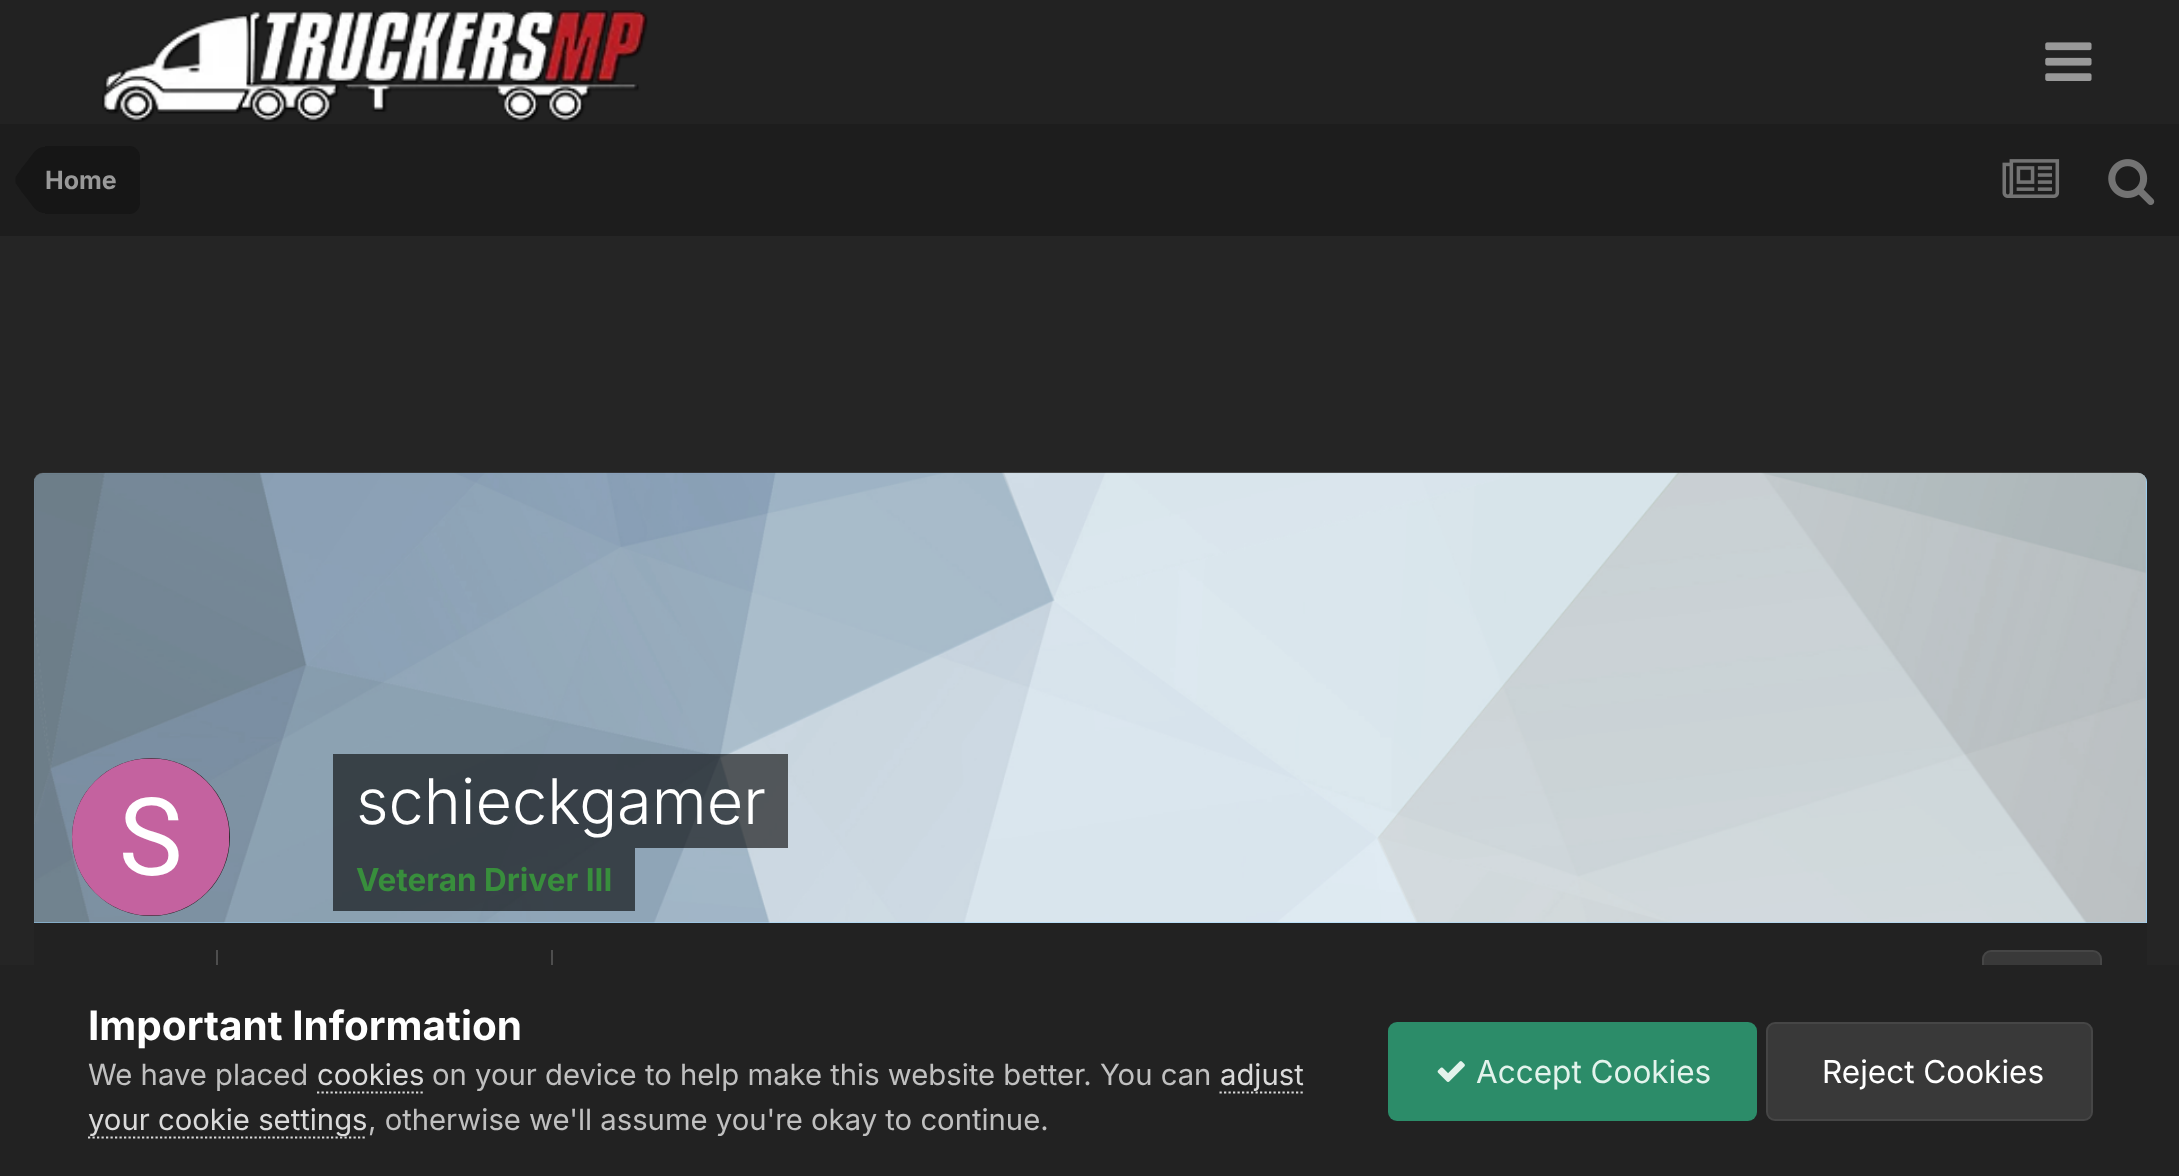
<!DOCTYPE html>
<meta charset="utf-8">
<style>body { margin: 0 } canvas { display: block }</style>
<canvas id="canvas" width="2179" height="1176"></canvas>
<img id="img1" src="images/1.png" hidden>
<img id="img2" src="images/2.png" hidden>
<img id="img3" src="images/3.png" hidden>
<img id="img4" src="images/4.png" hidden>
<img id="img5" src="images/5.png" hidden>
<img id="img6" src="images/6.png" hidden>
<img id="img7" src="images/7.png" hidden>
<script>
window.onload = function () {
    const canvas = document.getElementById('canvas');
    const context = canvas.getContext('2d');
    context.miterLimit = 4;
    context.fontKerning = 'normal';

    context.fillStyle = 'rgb(37, 37, 37)';
    context.fillRect(0, 0, 2179, 1176);
    context.fillStyle = 'rgb(34, 34, 34)';
    context.fillRect(0, 0, 2179, 124);
    context.drawImage(document.getElementById('img1'), 102, 10, 546, 112);
    context.drawImage(document.getElementById('img2'), 2045, 42, 47, 39);
    context.fillStyle = 'rgb(29, 29, 29)';
    context.fillRect(0, 124, 2179, 112);
    context.fillStyle = 'rgb(22, 22, 22)';
    context.beginPath();
    context.roundRect(45, 146, 95, 68, [0, 11, 11, 0]);
    context.fill();
    context.beginPath();
    context.moveTo(45, 180);
    context.lineTo(45, 213);
    context.bezierCurveTo(40, 213, 35.5, 210.5, 32, 205);
    context.lineTo(21.5, 191.5);
    context.lineTo(16, 183.5);
    context.bezierCurveTo(15.5, 182, 15.5, 181, 15.5, 180);
    context.closePath();
    context.fill();
    context.beginPath();
    context.moveTo(45, 180);
    context.lineTo(15.5, 180);
    context.bezierCurveTo(15.5, 179, 15.5, 178, 16, 176.5);
    context.lineTo(21.5, 168.5);
    context.lineTo(32, 155);
    context.bezierCurveTo(35.5, 149.5, 40, 147, 45, 147);
    context.closePath();
    context.fill();
    context.drawImage(document.getElementById('img3'), 2002, 159, 58, 39);
    context.drawImage(document.getElementById('img4'), 2108, 159, 47, 46);
    context.fillStyle = 'rgb(153, 214, 255)';
    context.beginPath();
    context.roundRect(34, 473, 2113, 450, [9, 9, 0, 0]);
    context.fill();
    context.drawImage(document.getElementById('img5'), 34, 472, 2113, 451);
    context.fillStyle = 'rgb(34, 34, 34)';
    context.beginPath();
    context.arc(151, 837, 79, 0, 2 * Math.PI);
    context.fill();
    context.drawImage(document.getElementById('img6'), 72, 758, 158, 158);
    context.fillStyle = 'rgba(0, 0, 0, 0.6)';
    context.fillRect(333, 754, 455, 94);
    context.fillRect(333, 848, 302, 63);
    context.fillStyle = 'rgb(34, 34, 34)';
    context.fillRect(34, 923, 2113, 42);
    context.fillStyle = 'rgb(78, 78, 78)';
    context.fillRect(216, 950, 2, 15);
    context.fillRect(551, 950, 2, 15);
    context.fillStyle = 'rgb(57, 57, 57)';
    context.beginPath();
    context.roundRect(1982, 950, 120, 87, 9);
    context.fill();
    context.beginPath();
    context.roundRect(1983, 951, 118, 85, 8);
    context.strokeStyle = 'rgba(255, 255, 255, 0.07)';
    context.lineWidth = 2;
    context.stroke();
    context.fillStyle = 'rgb(34, 34, 34)';
    context.fillRect(0, 965, 2179, 211);
    context.beginPath();
    context.moveTo(317, 1092.5);
    context.lineTo(423, 1092.5);
    context.strokeStyle = 'rgb(218, 218, 218)';
    context.lineWidth = 2.2;
    context.setLineDash([2.25, 2.25]);
    context.stroke();
    context.beginPath();
    context.moveTo(1219.5, 1092.5);
    context.lineTo(1303, 1092.5);
    context.stroke();
    context.beginPath();
    context.moveTo(88, 1137.5);
    context.lineTo(367, 1137.5);
    context.stroke();
    context.fillStyle = 'rgb(44, 140, 105)';
    context.beginPath();
    context.roundRect(1388, 1022, 369, 99, 9);
    context.fill();
    context.drawImage(document.getElementById('img7'), 1437, 1061, 28, 21);
    context.fillStyle = 'rgb(57, 57, 57)';
    context.beginPath();
    context.roundRect(1766, 1022, 327, 99, 9);
    context.fill();
    context.beginPath();
    context.roundRect(1767, 1023, 325, 97, 8);
    context.strokeStyle = 'rgba(255, 255, 255, 0.07)';
    context.lineWidth = 2;
    context.setLineDash([]);
    context.stroke();
    context.font = 'bold 25px Inter';
    context.fillStyle = 'rgb(153, 153, 153)';
    context.fillText('Home', 45, 189);
    context.font = '300 63px Inter';
    context.fillStyle = 'rgb(255, 255, 255)';
    context.fillText('schieckgamer', 356, 824);
    context.font = 'bold 31.5px Inter';
    context.fillStyle = 'rgb(56, 142, 60)';
    context.fillText('Veteran Driver III', 356, 891);
    context.font = 'bold 40.5px Inter';
    context.fillStyle = 'rgb(255, 255, 255)';
    context.fillText('Important Information', 88, 1040);
    context.font = '29.25px Inter';
    context.fillStyle = 'rgb(192, 192, 192)';
    context.fillText('We have placed', 88, 1085);
    context.fillStyle = 'rgb(218, 218, 218)';
    context.fillText('cookies', 317, 1085);
    context.fillStyle = 'rgb(192, 192, 192)';
    context.fillText('on your device to help make this website better. You can', 432, 1085);
    context.fillStyle = 'rgb(218, 218, 218)';
    context.fillText('adjust', 1220, 1085);
    context.fillText('your cookie settings', 88, 1130);
    context.fillStyle = 'rgb(192, 192, 192)';
    context.fillText(', otherwise we\'ll assume you\'re okay to continue.', 368, 1130);
    context.font = '31.5px Inter';
    context.fillStyle = 'rgb(227, 243, 236)';
    context.fillText('Accept Cookies', 1476, 1083);
    context.fillStyle = 'rgb(255, 255, 255)';
    context.fillText('Reject Cookies', 1822, 1083);
};
</script>
